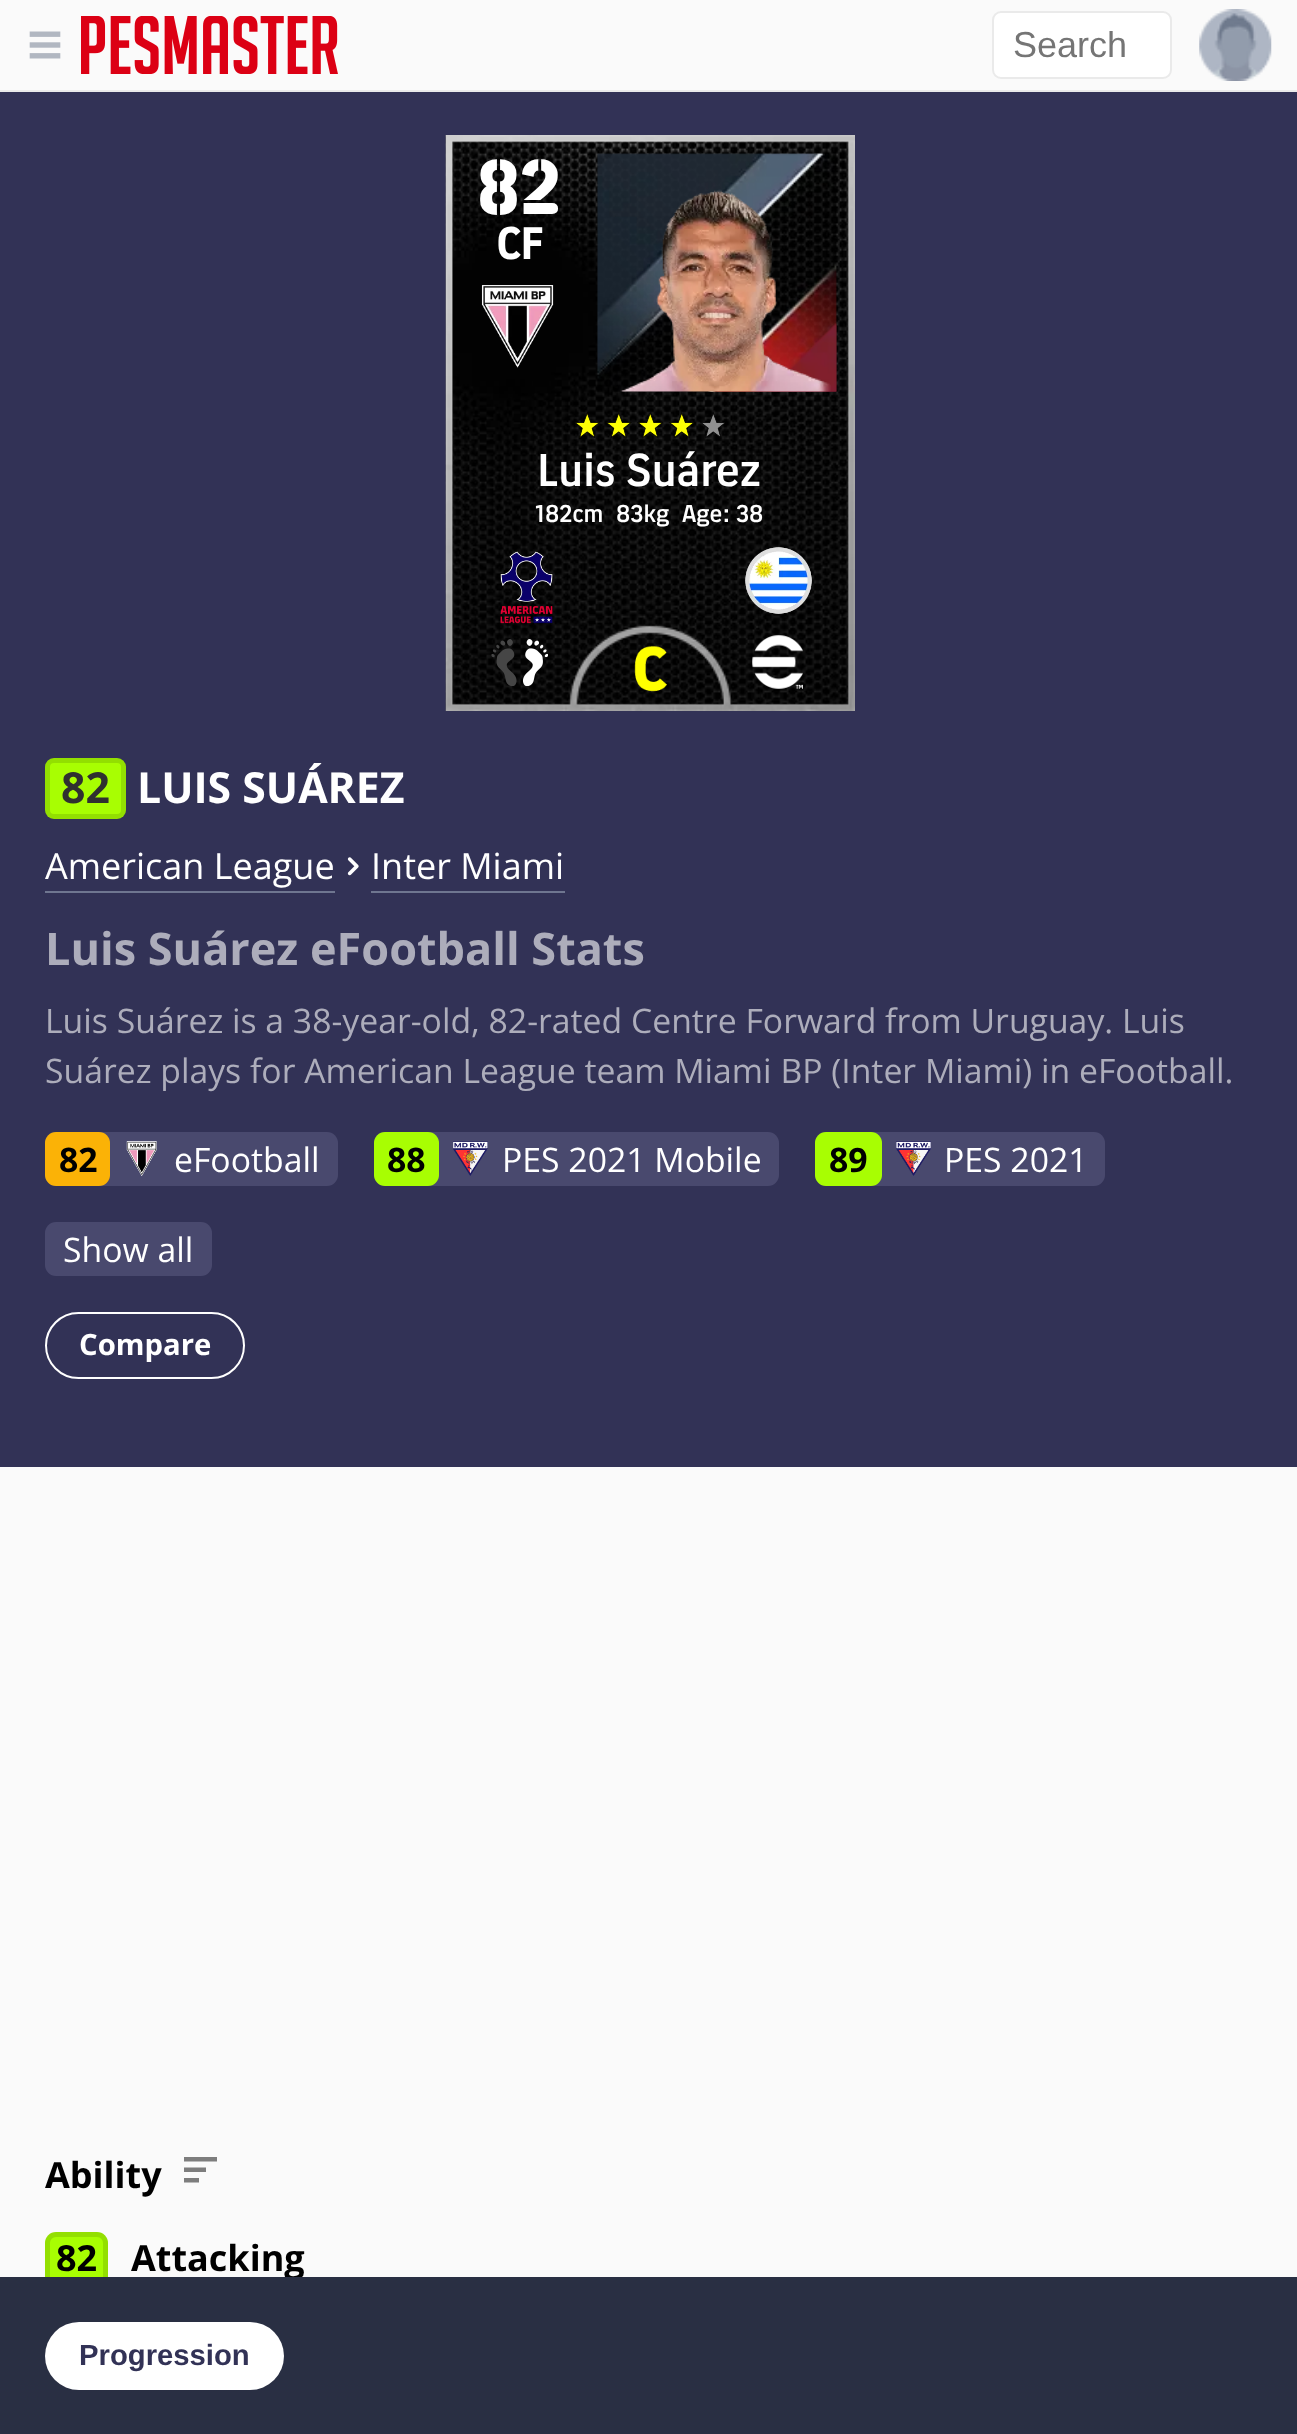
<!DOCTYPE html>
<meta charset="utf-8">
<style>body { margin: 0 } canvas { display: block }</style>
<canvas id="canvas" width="1297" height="2434"></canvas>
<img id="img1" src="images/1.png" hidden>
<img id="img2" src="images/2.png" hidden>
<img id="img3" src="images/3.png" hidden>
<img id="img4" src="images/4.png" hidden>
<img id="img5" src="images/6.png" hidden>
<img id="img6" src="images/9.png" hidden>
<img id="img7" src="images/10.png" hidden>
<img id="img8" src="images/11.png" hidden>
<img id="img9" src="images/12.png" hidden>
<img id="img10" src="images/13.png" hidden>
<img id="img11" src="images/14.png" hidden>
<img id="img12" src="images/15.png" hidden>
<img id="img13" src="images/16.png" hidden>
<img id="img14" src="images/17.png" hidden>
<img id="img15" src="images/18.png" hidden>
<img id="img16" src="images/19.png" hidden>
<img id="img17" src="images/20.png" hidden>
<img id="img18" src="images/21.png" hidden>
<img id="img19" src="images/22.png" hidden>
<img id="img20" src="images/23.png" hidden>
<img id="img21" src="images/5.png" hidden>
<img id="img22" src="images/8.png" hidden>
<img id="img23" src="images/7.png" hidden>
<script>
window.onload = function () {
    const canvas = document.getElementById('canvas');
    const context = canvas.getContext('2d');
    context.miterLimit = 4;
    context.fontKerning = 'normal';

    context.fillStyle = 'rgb(250, 250, 250)';
    context.fillRect(0, 0, 1297, 2434);
    context.fillStyle = 'rgb(234, 234, 234)';
    context.fillRect(0, 90, 1297, 2);
    context.drawImage(document.getElementById('img1'), 29, 31, 32, 28);
    context.drawImage(document.getElementById('img2'), 81, 16, 257, 58);
    context.fillStyle = 'rgb(255, 255, 255)';
    context.beginPath();
    context.roundRect(993, 12, 178, 66, 8);
    context.fill();
    context.strokeStyle = 'rgb(234, 234, 234)';
    context.lineWidth = 2;
    context.stroke();
    context.drawImage(document.getElementById('img3'), 1199, 9, 73, 72);
    context.fillStyle = 'rgb(50, 50, 86)';
    context.fillRect(0, 92, 1297, 1375);
    context.drawImage(document.getElementById('img4'), 445, 135, 404, 576);
    context.drawImage(document.getElementById('img5'), 597, 153, 240, 239);
    context.drawImage(document.getElementById('img6'), 575, 412, 25, 26);
    context.drawImage(document.getElementById('img7'), 606, 412, 26, 27);
    context.drawImage(document.getElementById('img8'), 637, 412, 26, 27);
    context.drawImage(document.getElementById('img9'), 668, 412, 26, 27);
    context.drawImage(document.getElementById('img10'), 700, 412, 25, 27);
    context.drawImage(document.getElementById('img11'), 500, 551, 53, 73);
    context.drawImage(document.getElementById('img12'), 745, 547, 67, 67);
    context.drawImage(document.getElementById('img13'), 491, 639, 26, 47);
    context.drawImage(document.getElementById('img14'), 522, 639, 26, 47);
    context.drawImage(document.getElementById('img15'), 634, 645, 33, 47);
    context.drawImage(document.getElementById('img16'), 752, 635, 51, 54);
    context.fillStyle = 'rgb(168, 254, 2)';
    context.beginPath();
    context.roundRect(45, 758, 81, 61, 9);
    context.fill();
    context.beginPath();
    context.roundRect(47.5, 760.5, 76, 56, 6.5);
    context.strokeStyle = 'rgba(0, 0, 0, 0.12)';
    context.lineWidth = 5;
    context.stroke();
    context.fillStyle = 'rgb(111, 118, 144)';
    context.fillRect(45, 891, 290, 2);
    context.drawImage(document.getElementById('img17'), 347, 857, 12, 19);
    context.fillRect(371, 891, 194, 2);
    context.fillStyle = 'rgb(73, 73, 110)';
    context.beginPath();
    context.roundRect(45, 1132, 293, 54, 11);
    context.fill();
    context.fillStyle = 'rgb(251, 178, 6)';
    context.beginPath();
    context.roundRect(45, 1132, 65, 54, 11);
    context.fill();
    context.drawImage(document.getElementById('img18'), 126, 1141, 31, 35);
    context.fillStyle = 'rgb(73, 73, 110)';
    context.beginPath();
    context.roundRect(374, 1132, 405, 54, 11);
    context.fill();
    context.fillStyle = 'rgb(168, 254, 2)';
    context.beginPath();
    context.roundRect(374, 1132, 65, 54, 11);
    context.fill();
    context.drawImage(document.getElementById('img19'), 453, 1141, 35, 35);
    context.fillStyle = 'rgb(73, 73, 110)';
    context.beginPath();
    context.roundRect(815, 1132, 290, 54, 11);
    context.fill();
    context.fillStyle = 'rgb(168, 254, 2)';
    context.beginPath();
    context.roundRect(815, 1132, 67, 54, 11);
    context.fill();
    context.drawImage(document.getElementById('img20'), 896, 1141, 35, 35);
    context.fillStyle = 'rgb(73, 73, 110)';
    context.beginPath();
    context.roundRect(45, 1222, 167, 54, 11);
    context.fill();
    context.beginPath();
    context.roundRect(46, 1313, 198, 65, 32.5);
    context.strokeStyle = 'rgb(255, 255, 255)';
    context.lineWidth = 2;
    context.stroke();
    context.fillStyle = 'rgb(125, 125, 125)';
    context.beginPath();
    context.moveTo(184, 2157);
    context.lineTo(217, 2157);
    context.lineTo(217, 2161.5);
    context.lineTo(184, 2161.5);
    context.closePath();
    context.moveTo(184, 2167.5);
    context.lineTo(206, 2167.5);
    context.lineTo(206, 2172);
    context.lineTo(184, 2172);
    context.closePath();
    context.moveTo(184, 2178);
    context.lineTo(199, 2178);
    context.lineTo(199, 2182.5);
    context.lineTo(184, 2182.5);
    context.closePath();
    context.fill();
    context.fillStyle = 'rgb(168, 254, 2)';
    context.beginPath();
    context.roundRect(45, 2232, 63, 56, 11);
    context.fill();
    context.beginPath();
    context.roundRect(47.5, 2234.5, 58, 51, 8.5);
    context.strokeStyle = 'rgba(0, 0, 0, 0.12)';
    context.lineWidth = 5;
    context.stroke();
    context.font = '36px Liberation Sans';
    context.fillStyle = 'rgb(117, 117, 117)';
    context.fillText('Search', 1013, 57);
    context.font = '25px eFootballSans';
    context.fillStyle = 'rgb(255, 255, 255)';
    context.fillText('182cm', 535, 522);
    context.fillText('83kg', 616, 522);
    context.fillText('Age: 38', 682, 522);
    context.drawImage(document.getElementById('img21'), 445, 135, 410, 576);
    context.font = '47.25px eFootballSans';
    context.fillText('Luis Suárez', 537, 486);
    context.drawImage(document.getElementById('img22'), 481, 285, 73, 83);
    context.font = 'bold 45px eFootballSans';
    context.fillText('CF', 496, 259);
    context.font = '79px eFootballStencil';
    context.fillText('82', 477, 214);
    context.drawImage(document.getElementById('img23'), 620, 190, 211, 202);
    context.font = 'bold 42.75px Open Sans';
    context.fillStyle = 'rgb(48, 48, 48)';
    context.fillText('82', 61, 803);
    context.fillStyle = 'rgb(255, 255, 255)';
    context.fillText('LUIS SUÁREZ', 137, 803);
    context.font = '36px Open Sans';
    context.fillText('American League', 45, 879);
    context.fillText('Inter Miami', 371, 879);
    context.font = 'bold 45px Open Sans';
    context.fillStyle = 'rgb(173, 173, 187)';
    context.fillText('Luis Suárez eFootball Stats', 45, 965);
    context.font = '33.75px Open Sans';
    context.fillText('Luis Suárez is a 38-year-old, 82-rated Centre Forward from Uruguay. Luis', 45, 1033);
    context.fillText('Suárez plays for American League team Miami BP (Inter Miami) in eFootball.', 45, 1083);
    context.font = 'bold 33.75px Open Sans';
    context.fillStyle = 'rgb(0, 0, 0)';
    context.fillText('82', 59, 1172);
    context.font = '33.75px Open Sans';
    context.fillStyle = 'rgb(255, 255, 255)';
    context.fillText('eFootball', 174, 1172);
    context.font = 'bold 33.75px Open Sans';
    context.fillStyle = 'rgb(0, 0, 0)';
    context.fillText('88', 387, 1172);
    context.font = '33.75px Open Sans';
    context.fillStyle = 'rgb(255, 255, 255)';
    context.fillText('PES 2021 Mobile', 502, 1172);
    context.font = 'bold 33.75px Open Sans';
    context.fillStyle = 'rgb(0, 0, 0)';
    context.fillText('89', 829, 1172);
    context.font = '33.75px Open Sans';
    context.fillStyle = 'rgb(255, 255, 255)';
    context.fillText('PES 2021', 944, 1172);
    context.fillText('Show all', 63, 1262);
    context.font = 'bold 29.25px Open Sans';
    context.fillText('Compare', 79, 1355);
    context.font = 'bold 36px Open Sans';
    context.fillStyle = 'rgb(0, 0, 0)';
    context.fillText('Ability', 45, 2188);
    context.fillText('82', 56, 2271);
    context.fillText('Attacking', 131, 2271);
    context.fillStyle = 'rgb(41, 47, 67)';
    context.fillRect(0, 2277, 1297, 157);
    context.fillStyle = 'rgb(255, 255, 255)';
    context.beginPath();
    context.roundRect(45, 2322, 239, 68, 34);
    context.fill();
    context.font = 'bold 29.25px Liberation Sans';
    context.fillStyle = 'rgb(50, 50, 86)';
    context.fillText('Progression', 79, 2365);
};
</script>
